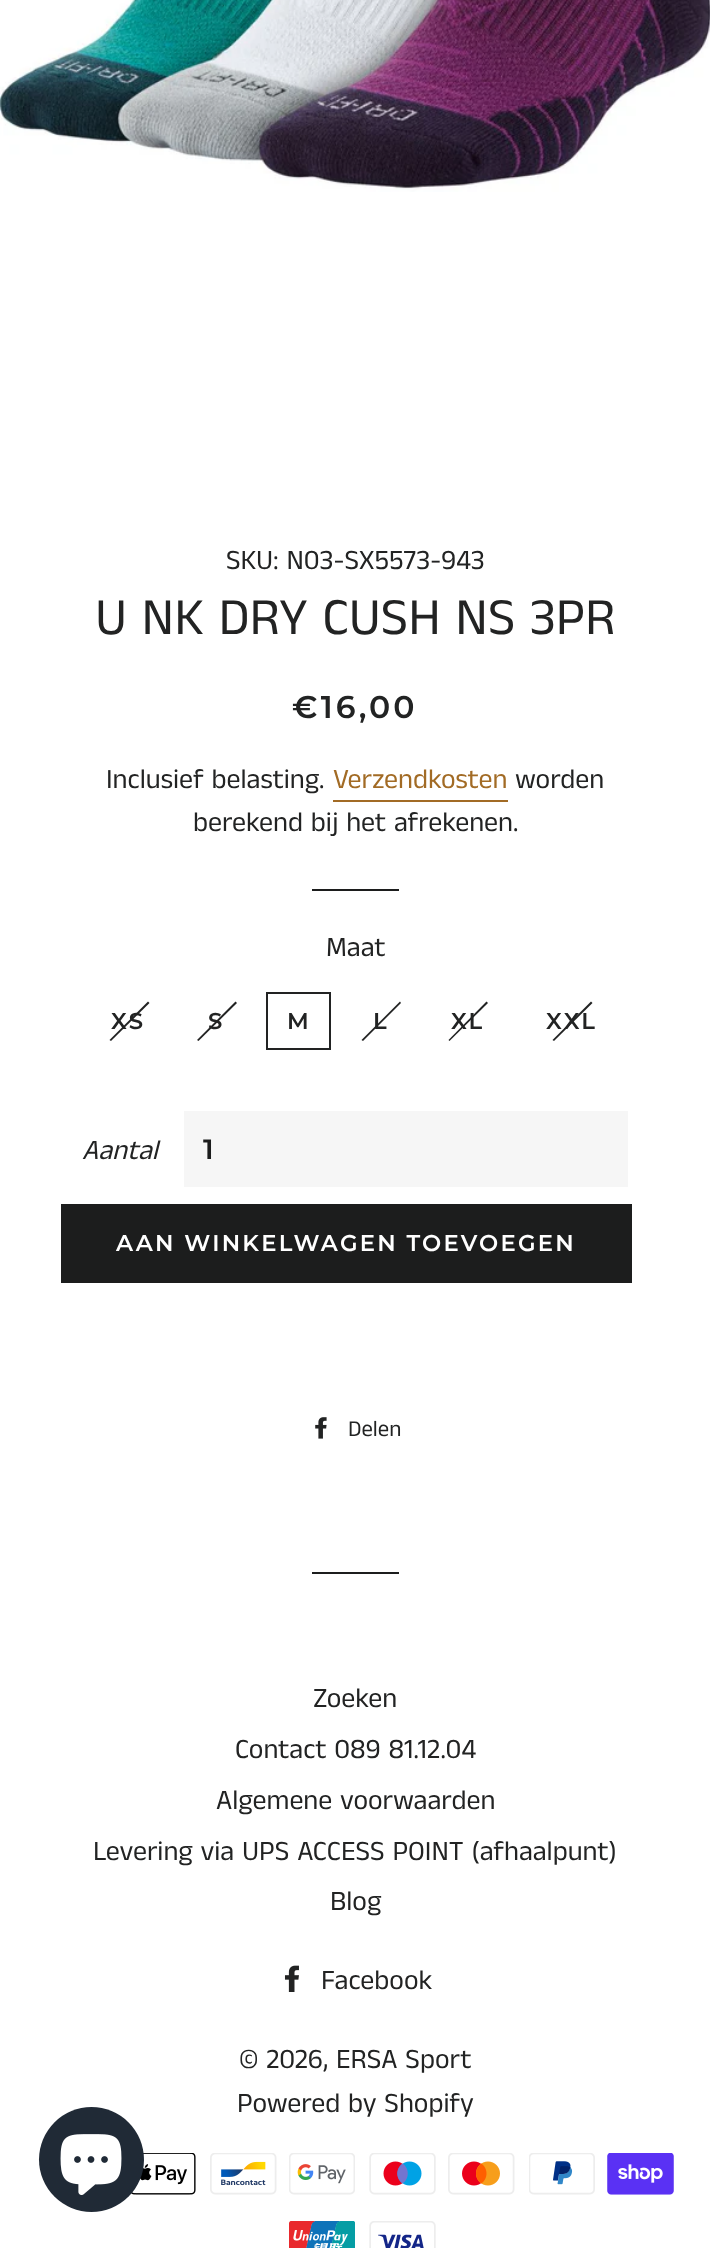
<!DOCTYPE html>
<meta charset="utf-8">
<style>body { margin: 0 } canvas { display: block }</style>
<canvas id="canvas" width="710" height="2248"></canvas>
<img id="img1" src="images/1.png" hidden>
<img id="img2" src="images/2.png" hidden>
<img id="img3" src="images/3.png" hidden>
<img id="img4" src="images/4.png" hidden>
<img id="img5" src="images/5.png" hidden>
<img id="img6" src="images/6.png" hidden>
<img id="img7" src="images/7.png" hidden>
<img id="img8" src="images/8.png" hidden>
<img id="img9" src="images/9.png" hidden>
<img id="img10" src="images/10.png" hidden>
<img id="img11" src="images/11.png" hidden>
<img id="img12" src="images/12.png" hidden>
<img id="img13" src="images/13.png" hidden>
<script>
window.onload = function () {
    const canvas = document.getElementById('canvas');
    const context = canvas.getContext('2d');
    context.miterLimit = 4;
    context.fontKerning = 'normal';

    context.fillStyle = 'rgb(255, 255, 255)';
    context.fillRect(0, 0, 710, 2248);
    context.drawImage(document.getElementById('img1'), 0, 0, 710, 192);
    context.fillStyle = 'rgb(162, 107, 37)';
    context.fillRect(333, 800, 175, 2);
    context.fillStyle = 'rgb(28, 29, 29)';
    context.fillRect(312, 889, 87, 2);
    context.fillStyle = 'rgb(34, 35, 35)';
    context.beginPath();
    context.moveTo(148, 1001.5);
    context.lineTo(149.5, 1003);
    context.lineTo(111, 1041);
    context.lineTo(109.5, 1040);
    context.closePath();
    context.fill();
    context.beginPath();
    context.moveTo(235.5, 1001.5);
    context.lineTo(237, 1003);
    context.lineTo(198.5, 1041);
    context.lineTo(197, 1040);
    context.closePath();
    context.fill();
    context.strokeStyle = 'rgb(34, 35, 35)';
    context.lineWidth = 2;
    context.strokeRect(267, 993, 63, 56);
    context.beginPath();
    context.moveTo(400, 1001.5);
    context.lineTo(401, 1003);
    context.lineTo(363, 1041);
    context.lineTo(361.5, 1040);
    context.closePath();
    context.fill();
    context.beginPath();
    context.moveTo(486.5, 1001.5);
    context.lineTo(488, 1003);
    context.lineTo(449.5, 1041);
    context.lineTo(448.5, 1040);
    context.closePath();
    context.fill();
    context.beginPath();
    context.moveTo(591, 1001.5);
    context.lineTo(592.5, 1003);
    context.lineTo(554, 1041);
    context.lineTo(552.5, 1040);
    context.closePath();
    context.fill();
    context.fillStyle = 'rgb(246, 246, 246)';
    context.fillRect(184, 1111, 444, 76);
    context.fillStyle = 'rgb(28, 29, 29)';
    context.fillRect(61, 1204, 571, 79);
    context.drawImage(document.getElementById('img2'), 315, 1417, 12, 22);
    context.fillRect(312, 1572, 87, 2);
    context.drawImage(document.getElementById('img3'), 284, 1965, 15, 27);
    context.drawImage(document.getElementById('img4'), 131, 2153, 65, 42);
    context.drawImage(document.getElementById('img5'), 210, 2153, 67, 42);
    context.drawImage(document.getElementById('img6'), 289, 2153, 66, 42);
    context.drawImage(document.getElementById('img7'), 369, 2153, 67, 42);
    context.drawImage(document.getElementById('img8'), 448, 2153, 67, 42);
    context.drawImage(document.getElementById('img9'), 529, 2153, 66, 42);
    context.drawImage(document.getElementById('img10'), 607, 2153, 67, 42);
    context.drawImage(document.getElementById('img11'), 289, 2221, 66, 27);
    context.drawImage(document.getElementById('img12'), 369, 2221, 67, 27);
    context.fillStyle = 'rgb(32, 42, 54)';
    context.beginPath();
    context.arc(91.5, 2159.5, 52.5, 0, 2 * Math.PI);
    context.fill();
    context.drawImage(document.getElementById('img13'), 60, 2134, 62, 61);
    context.font = '28px Anek Tamil';
    context.fillStyle = 'rgb(34, 35, 35)';
    context.fillText('SKU: N03-SX5573-943', 226, 569);
    context.font = '52.5px Anek Tamil';
    context.fillText('U NK DRY CUSH NS 3PR', 95, 634);
    context.letterSpacing = '3px';
    context.font = '600 31.5px Montserrat';
    context.fillText('€16,00', 292, 718);
    context.letterSpacing = '0px';
    context.font = '28px Anek Tamil';
    context.fillText('Inclusief belasting.', 106, 788);
    context.fillStyle = 'rgb(162, 107, 37)';
    context.fillText('Verzendkosten', 333, 788);
    context.fillStyle = 'rgb(34, 35, 35)';
    context.fillText('worden', 515, 788);
    context.fillText('berekend bij het afrekenen.', 193, 831);
    context.fillText('Maat', 326, 956);
    context.letterSpacing = '2.25px';
    context.font = '600 22.75px Montserrat';
    context.fillText('XS', 111, 1029);
    context.fillText('S', 208, 1029);
    context.fillText('M', 287, 1029);
    context.fillText('L', 373, 1029);
    context.fillText('XL', 451, 1029);
    context.fillText('XXL', 546, 1029);
    context.letterSpacing = '0px';
    context.font = 'italic 28px Anek Tamil';
    context.fillText('Aantal', 82, 1159);
    context.letterSpacing = '3px';
    context.font = '600 28px Montserrat';
    context.fillStyle = 'rgb(28, 29, 29)';
    context.fillText('1', 203, 1159);
    context.letterSpacing = '2.25px';
    context.font = '600 22.75px Montserrat';
    context.fillStyle = 'rgb(255, 255, 255)';
    context.fillText('AAN WINKELWAGEN TOEVOEGEN', 116, 1251);
    context.letterSpacing = '0px';
    context.font = '22.75px Anek Tamil';
    context.fillStyle = 'rgb(34, 35, 35)';
    context.fillText('Delen', 348, 1436);
    context.font = '28px Anek Tamil';
    context.fillText('Zoeken', 313, 1707);
    context.fillText('Contact 089 81.12.04', 235, 1758);
    context.fillText('Algemene voorwaarden', 216, 1809);
    context.fillText('Levering via UPS ACCESS POINT (afhaalpunt)', 93, 1860);
    context.fillText('Blog', 330, 1910);
    context.fillText('Facebook', 321, 1989);
    context.fillText('© 2026, ERSA Sport', 239, 2068);
    context.fillText('Powered by Shopify', 237, 2112);
};
</script>
